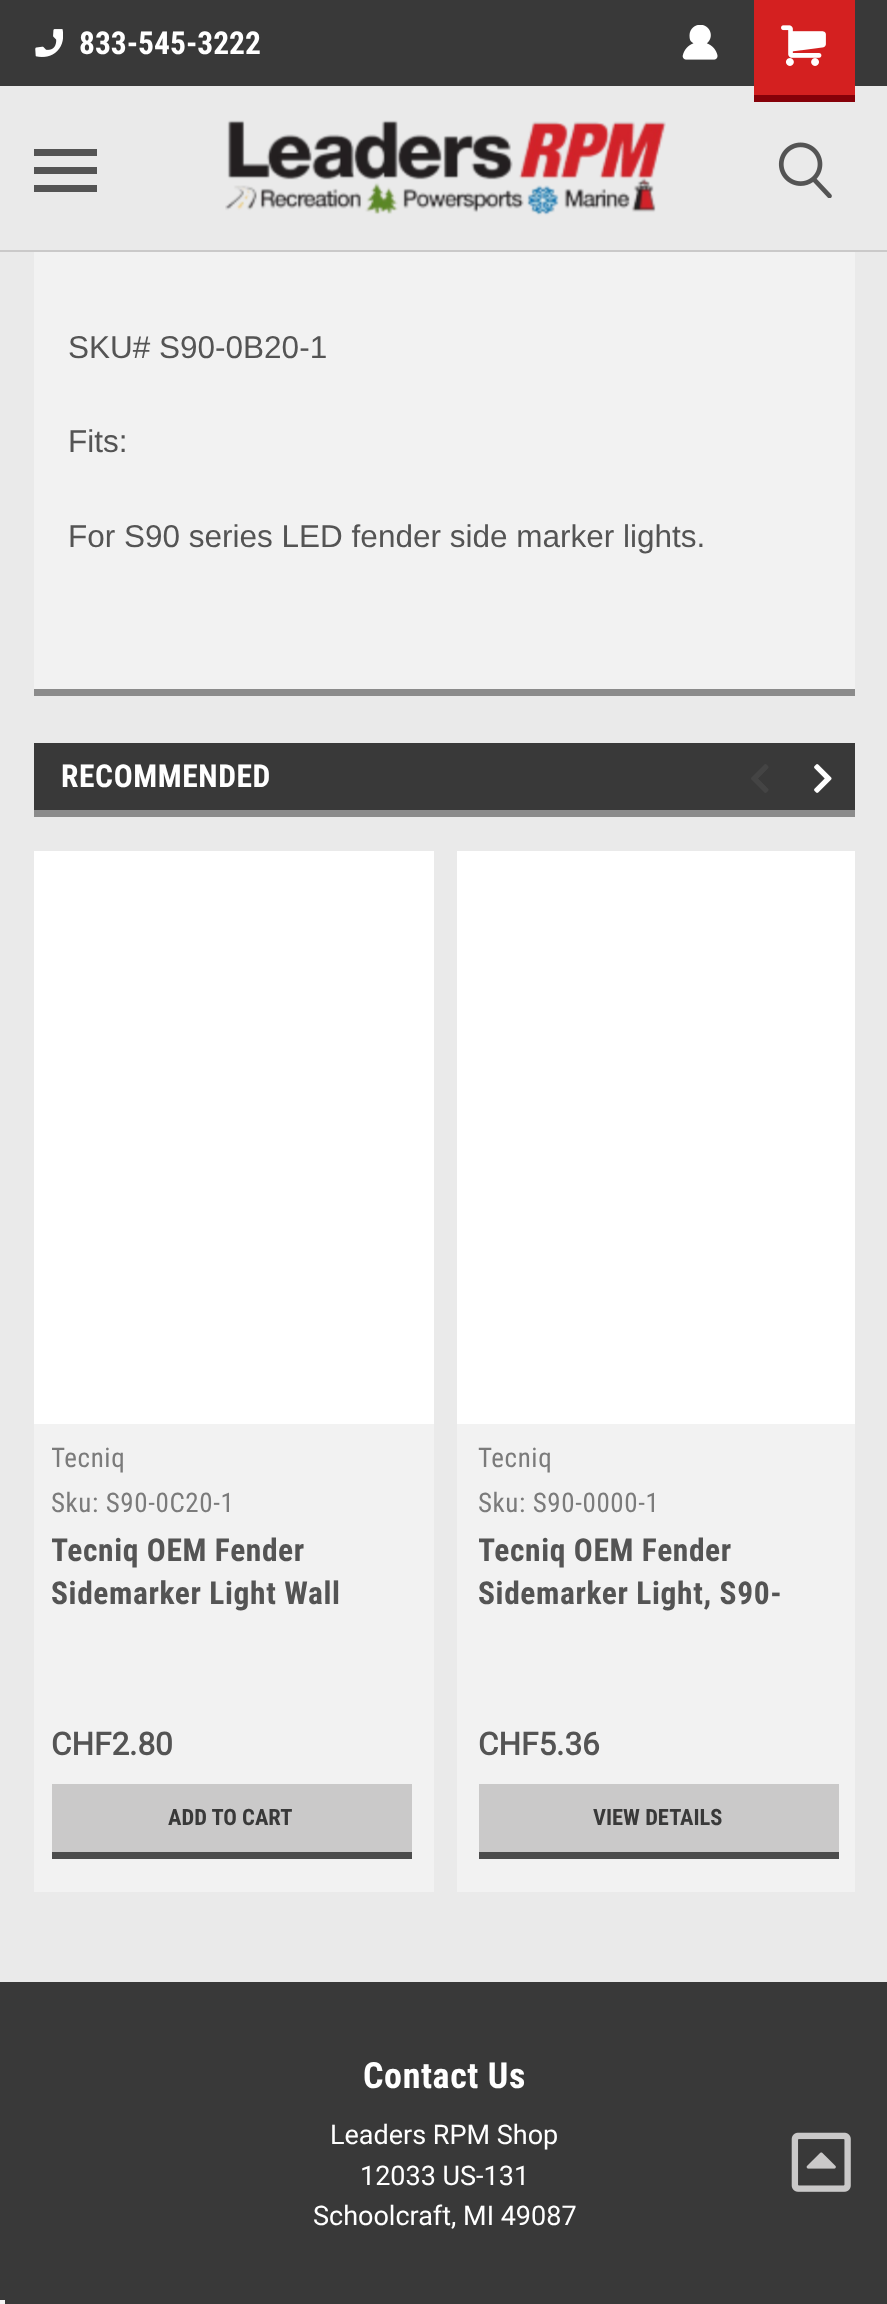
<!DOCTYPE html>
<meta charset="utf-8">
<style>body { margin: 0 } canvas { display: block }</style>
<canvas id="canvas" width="887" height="2304"></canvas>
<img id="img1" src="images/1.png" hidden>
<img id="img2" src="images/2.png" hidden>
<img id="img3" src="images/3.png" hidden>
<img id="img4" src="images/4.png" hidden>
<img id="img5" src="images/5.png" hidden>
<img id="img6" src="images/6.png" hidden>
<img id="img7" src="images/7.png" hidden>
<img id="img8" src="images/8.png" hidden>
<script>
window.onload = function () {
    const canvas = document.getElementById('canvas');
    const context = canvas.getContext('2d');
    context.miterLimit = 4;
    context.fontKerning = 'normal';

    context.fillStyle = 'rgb(234, 234, 234)';
    context.fillRect(0, 0, 887, 2304);
    context.fillStyle = 'rgb(202, 201, 201)';
    context.fillRect(0, 250, 887, 2);
    context.fillStyle = 'rgb(57, 57, 57)';
    context.fillRect(0, 0, 887, 86);
    context.drawImage(document.getElementById('img1'), 35, 29, 28, 28);
    context.drawImage(document.getElementById('img2'), 682, 25, 36, 35);
    context.fillStyle = 'rgb(212, 32, 32)';
    context.fillRect(754, 0, 101, 95);
    context.fillStyle = 'rgb(134, 1, 9)';
    context.fillRect(754, 95, 101, 7);
    context.drawImage(document.getElementById('img3'), 781, 25, 45, 41);
    context.fillStyle = 'rgb(84, 84, 84)';
    context.fillRect(34, 167, 63, 7);
    context.fillRect(34, 149, 63, 7);
    context.fillRect(34, 185, 63, 7);
    context.drawImage(document.getElementById('img4'), 225, 120, 441, 96);
    context.drawImage(document.getElementById('img5'), 778, 142, 54, 56);
    context.fillStyle = 'rgb(242, 242, 242)';
    context.fillRect(34, 252, 821, 437);
    context.fillStyle = 'rgb(139, 139, 139)';
    context.fillRect(34, 689, 821, 7);
    context.fillStyle = 'rgb(57, 57, 57)';
    context.fillRect(34, 743, 821, 67);
    context.fillStyle = 'rgb(139, 139, 139)';
    context.fillRect(34, 810, 821, 7);
    context.drawImage(document.getElementById('img6'), 751, 764, 18, 29);
    context.drawImage(document.getElementById('img7'), 814, 764, 18, 29);
    context.fillStyle = 'rgb(242, 242, 242)';
    context.fillRect(34, 1424, 400, 468);
    context.fillStyle = 'rgb(255, 255, 255)';
    context.fillRect(34, 851, 400, 573);
    context.fillStyle = 'rgb(202, 201, 201)';
    context.fillRect(52, 1784, 360, 68);
    context.fillStyle = 'rgb(76, 76, 76)';
    context.fillRect(52, 1852, 360, 7);
    context.fillStyle = 'rgb(242, 242, 242)';
    context.fillRect(457, 1424, 398, 468);
    context.fillStyle = 'rgb(255, 255, 255)';
    context.fillRect(457, 851, 398, 573);
    context.fillStyle = 'rgb(202, 201, 201)';
    context.fillRect(479, 1784, 360, 68);
    context.fillStyle = 'rgb(76, 76, 76)';
    context.fillRect(479, 1852, 360, 7);
    context.fillStyle = 'rgb(57, 57, 57)';
    context.fillRect(0, 1982, 887, 322);
    context.drawImage(document.getElementById('img8'), 791, 2132, 60, 60);
    context.fillStyle = 'rgb(245, 245, 245)';
    context.fillRect(0, 2300, 5, 4);
    context.font = 'bold 31.5px Roboto Condensed';
    context.fillStyle = 'rgb(255, 255, 255)';
    context.fillText('833-545-3222', 79, 54);
    context.font = '31.5px Liberation Sans';
    context.fillStyle = 'rgb(84, 84, 84)';
    context.fillText('SKU# S90-0B20-1', 68, 358);
    context.fillText('Fits:', 68, 452);
    context.fillText('For S90 series LED fender side marker lights.', 68, 547);
    context.letterSpacing = '0.6px';
    context.font = 'bold 31.5px Roboto Condensed';
    context.fillStyle = 'rgb(255, 255, 255)';
    context.fillText('RECOMMENDED', 61, 787);
    context.save();
    context.beginPath();
    context.rect(52, 1440, 360, 41);
    context.clip();
    context.font = '27px Roboto Condensed';
    context.fillStyle = 'rgb(123, 123, 123)';
    context.fillText('Tecniq', 51, 1467);
    context.restore();
    context.font = '27px Roboto Condensed';
    context.fillStyle = 'rgb(123, 123, 123)';
    context.fillText('Sku: S90-0C20-1', 51, 1512);
    context.save();
    context.beginPath();
    context.rect(52, 1530, 360, 90);
    context.clip();
    context.font = 'bold 31.5px Roboto Condensed';
    context.fillStyle = 'rgb(84, 84, 84)';
    context.fillText('Tecniq OEM Fender', 51, 1561);
    context.restore();
    context.font = 'bold 31.5px Roboto Condensed';
    context.fillStyle = 'rgb(84, 84, 84)';
    context.fillText('Sidemarker Light Wall', 51, 1604);
    context.letterSpacing = '0px';
    context.font = 'bold 31.5px Roboto';
    context.fillText('CHF2.80', 51, 1755);
    context.font = 'bold 22.5px Roboto Condensed';
    context.fillStyle = 'rgb(57, 57, 57)';
    context.fillText('ADD TO CART', 168, 1825);
    context.letterSpacing = '0.6px';
    context.font = '27px Roboto Condensed';
    context.fillStyle = 'rgb(123, 123, 123)';
    context.fillText('Tecniq', 478, 1467);
    context.fillText('Sku: S90-0000-1', 478, 1512);
    context.save();
    context.beginPath();
    context.rect(479, 1530, 360, 90);
    context.clip();
    context.font = 'bold 31.5px Roboto Condensed';
    context.fillStyle = 'rgb(84, 84, 84)';
    context.fillText('Tecniq OEM Fender', 478, 1561);
    context.restore();
    context.font = 'bold 31.5px Roboto Condensed';
    context.fillStyle = 'rgb(84, 84, 84)';
    context.fillText('Sidemarker Light, S90-', 478, 1604);
    context.letterSpacing = '0px';
    context.font = 'bold 31.5px Roboto';
    context.fillText('CHF5.36', 478, 1755);
    context.font = 'bold 22.5px Roboto Condensed';
    context.fillStyle = 'rgb(57, 57, 57)';
    context.fillText('VIEW DETAILS', 593, 1825);
    context.letterSpacing = '0.6px';
    context.font = 'bold 36px Roboto Condensed';
    context.fillStyle = 'rgb(255, 255, 255)';
    context.fillText('Contact Us', 363, 2088);
    context.letterSpacing = '0px';
    context.font = '27px Roboto';
    context.fillText('Leaders RPM Shop', 330, 2144);
    context.fillText('12033 US-131', 360, 2185);
    context.fillText('Schoolcraft, MI 49087', 313, 2225);
};
</script>
